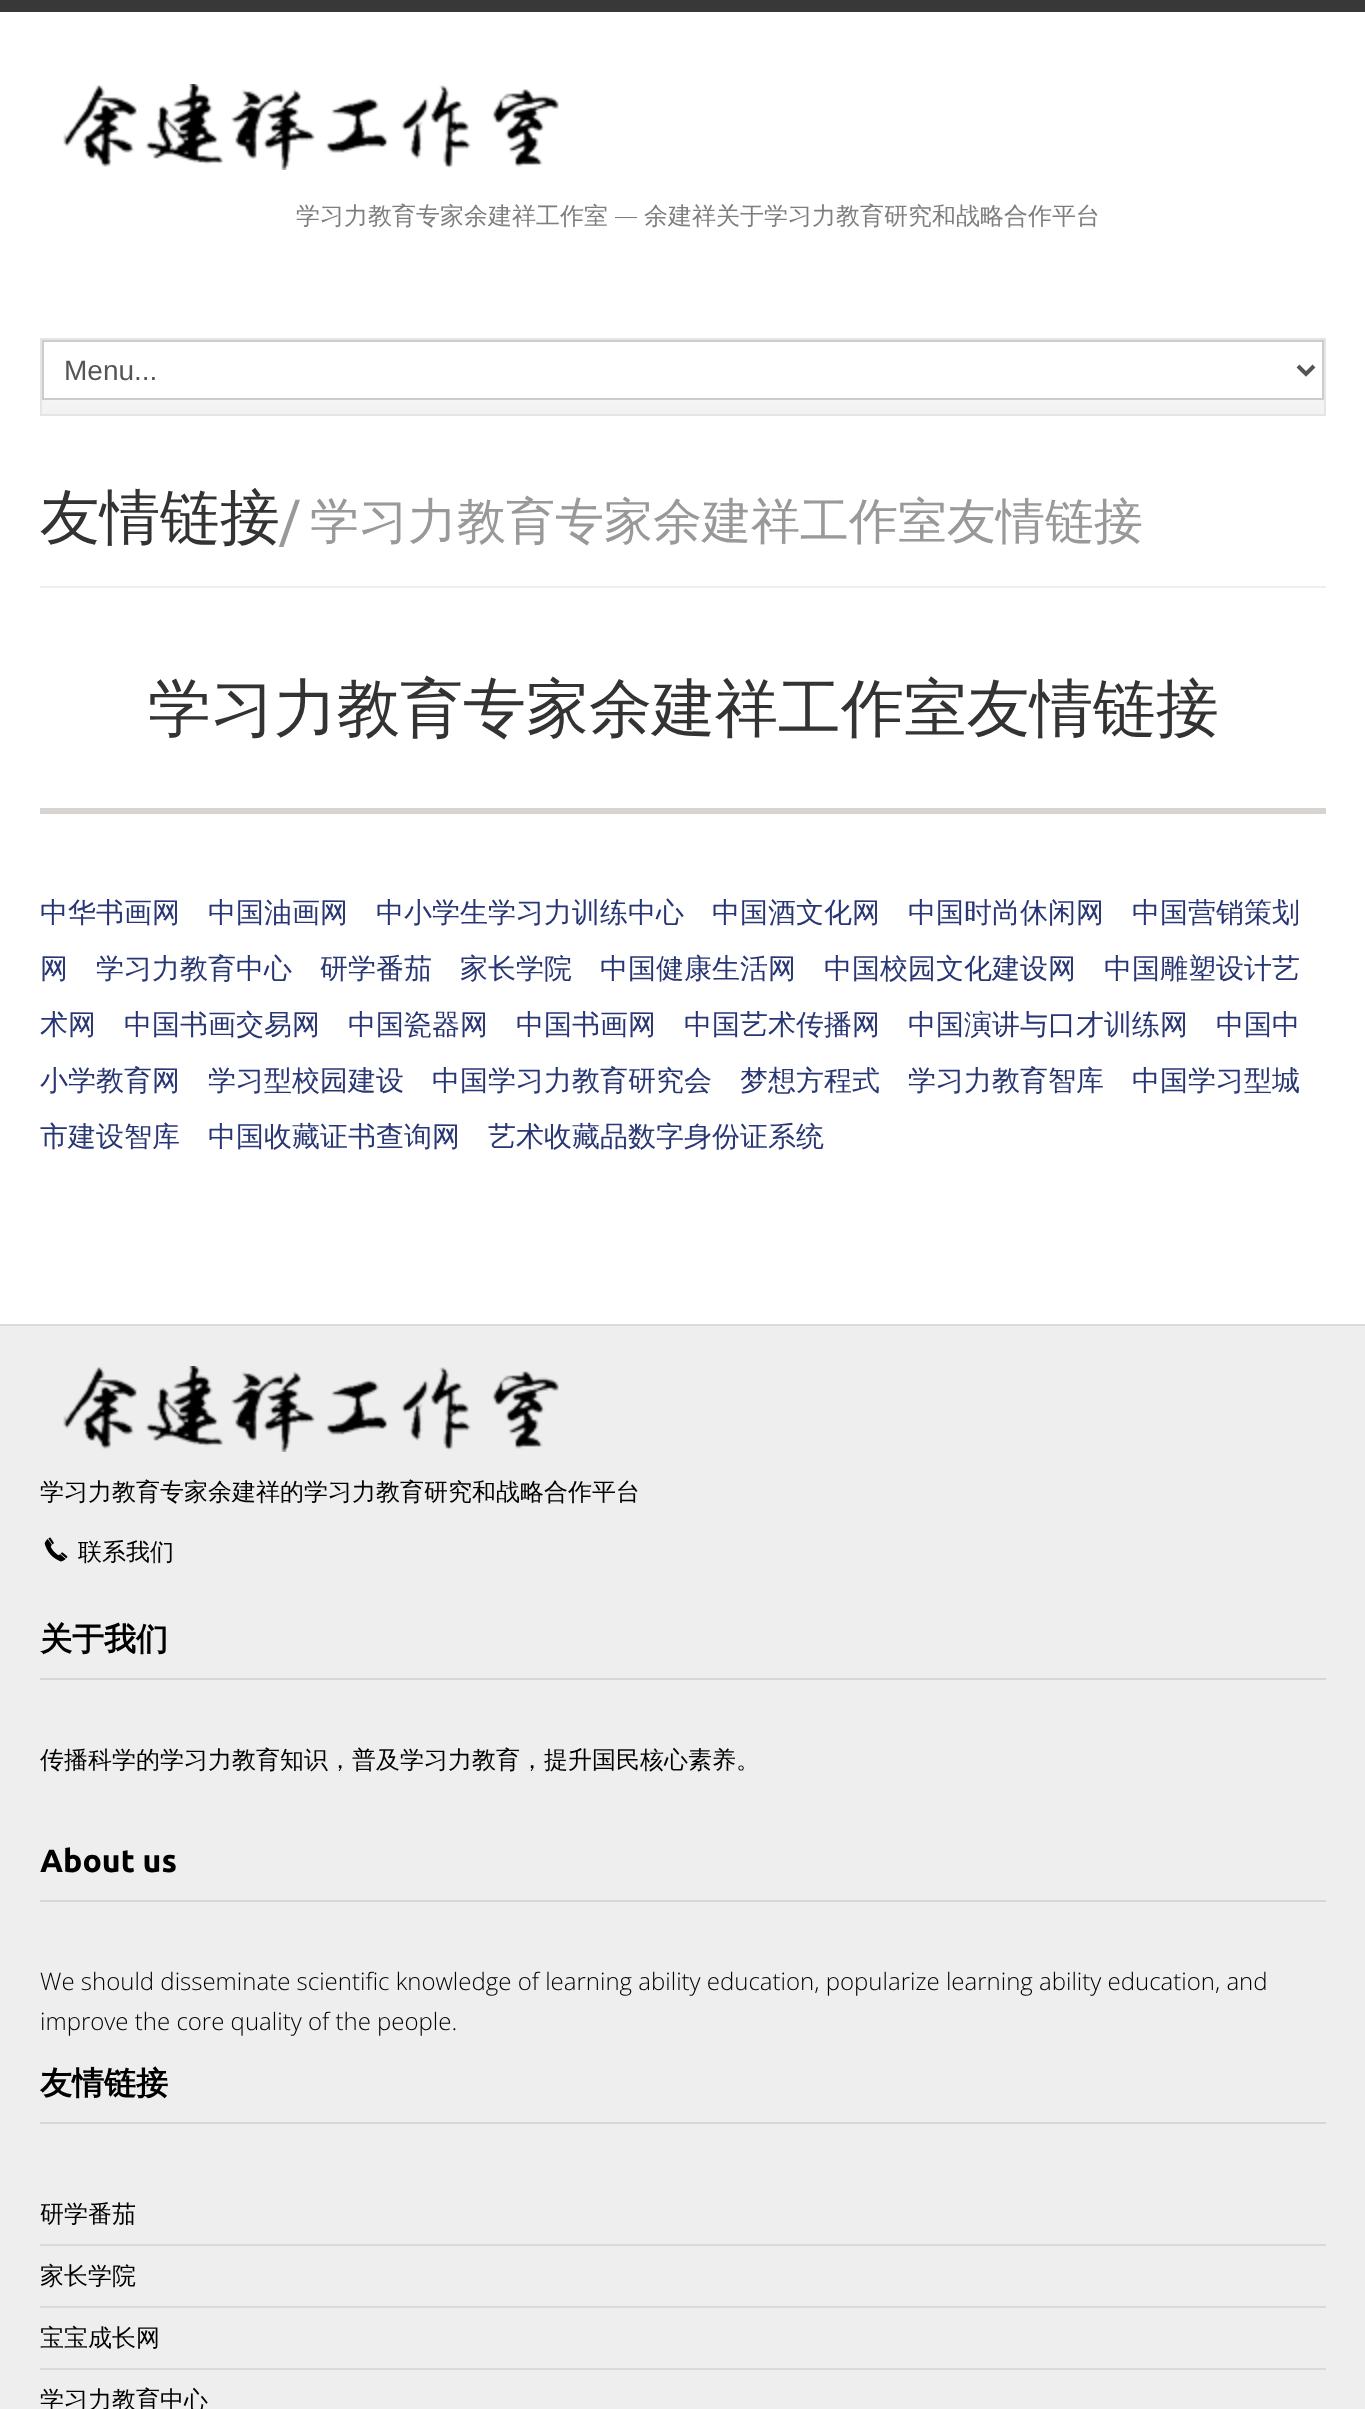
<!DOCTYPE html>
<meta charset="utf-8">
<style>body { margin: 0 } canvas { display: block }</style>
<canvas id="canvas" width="1365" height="2409"></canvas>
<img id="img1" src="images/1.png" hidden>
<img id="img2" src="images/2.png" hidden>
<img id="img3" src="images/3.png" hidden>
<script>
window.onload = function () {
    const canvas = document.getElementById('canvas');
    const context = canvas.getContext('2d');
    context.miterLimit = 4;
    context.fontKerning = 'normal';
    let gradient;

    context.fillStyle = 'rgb(255, 255, 255)';
    context.fillRect(0, 0, 1365, 2409);
    context.fillStyle = 'rgb(56, 56, 56)';
    context.fillRect(0, 0, 1365, 12);
    context.drawImage(document.getElementById('img1'), 63, 84, 496, 86);
    gradient = context.createLinearGradient(683, 340, 683, 414);
    gradient.addColorStop(0, 'rgb(255, 255, 255)');
    gradient.addColorStop(1, 'rgb(242, 242, 242)');
    context.fillStyle = gradient;
    context.fillRect(42, 400, 1282, 14);
    context.strokeStyle = 'rgb(229, 229, 229)';
    context.lineWidth = 2;
    context.strokeRect(41, 339, 1284, 76);
    context.strokeStyle = 'rgb(204, 204, 204)';
    context.strokeRect(43, 341, 1280, 58);
    context.beginPath();
    context.moveTo(1298, 366);
    context.lineTo(1306, 374);
    context.lineTo(1314, 366);
    context.strokeStyle = 'rgb(85, 85, 85)';
    context.lineWidth = 4;
    context.stroke();
    context.fillStyle = 'rgb(238, 238, 238)';
    context.fillRect(40, 586, 1286, 2);
    context.fillStyle = 'rgb(214, 211, 209)';
    context.fillRect(40, 808, 1286, 6);
    context.fillStyle = 'rgb(238, 238, 238)';
    context.fillRect(0, 1326, 1365, 1083);
    context.fillStyle = 'rgb(219, 219, 219)';
    context.fillRect(0, 1324, 1365, 2);
    context.drawImage(document.getElementById('img2'), 63, 1366, 496, 86);
    context.drawImage(document.getElementById('img3'), 44, 1537, 24, 25);
    context.fillStyle = 'rgb(214, 214, 214)';
    context.fillRect(40, 1678, 1286, 2);
    context.fillRect(40, 1900, 1286, 2);
    context.fillRect(40, 2122, 1286, 2);
    context.fillStyle = 'rgb(218, 218, 218)';
    context.fillRect(40, 2244, 1286, 2);
    context.fillRect(40, 2306, 1286, 2);
    context.fillRect(40, 2368, 1286, 2);
    context.font = '500 24px WenQuanYi Zen Hei';
    context.fillStyle = 'rgb(126, 126, 126)';
    context.fillText('学习力教育专家余建祥工作室', 296, 224);
    context.font = '300 24px Open Sans';
    context.fillText('—', 614, 224);
    context.font = '500 24px WenQuanYi Zen Hei';
    context.fillText('余建祥关于学习力教育研究和战略合作平台', 644, 224);
    context.font = '28px Liberation Sans';
    context.fillStyle = 'rgb(85, 85, 85)';
    context.fillText('Menu...', 64, 380);
    context.font = '500 60px WenQuanYi Zen Hei';
    context.fillStyle = 'rgb(51, 51, 51)';
    context.fillText('友情链接', 40, 538);
    context.font = '49px Ubuntu';
    context.fillStyle = 'rgb(153, 153, 153)';
    context.fillText('/', 280, 538);
    context.font = '500 49px WenQuanYi Zen Hei';
    context.fillText('学习力教育专家余建祥工作室友情链接', 310, 538);
    context.font = '500 63px WenQuanYi Zen Hei';
    context.fillStyle = 'rgb(51, 51, 51)';
    context.fillText('学习力教育专家余建祥工作室友情链接', 148, 730);
    context.font = '500 28px WenQuanYi Zen Hei';
    context.fillStyle = 'rgb(41, 54, 116)';
    context.fillText('中华书画网', 40, 922);
    context.fillText('中国油画网', 208, 922);
    context.fillText('中小学生学习力训练中心', 376, 922);
    context.fillText('中国酒文化网', 712, 922);
    context.fillText('中国时尚休闲网', 908, 922);
    context.fillText('中国营销策划', 1132, 922);
    context.fillText('网', 40, 978);
    context.fillText('学习力教育中心', 96, 978);
    context.fillText('研学番茄', 320, 978);
    context.fillText('家长学院', 460, 978);
    context.fillText('中国健康生活网', 600, 978);
    context.fillText('中国校园文化建设网', 824, 978);
    context.fillText('中国雕塑设计艺', 1104, 978);
    context.fillText('术网', 40, 1034);
    context.fillText('中国书画交易网', 124, 1034);
    context.fillText('中国瓷器网', 348, 1034);
    context.fillText('中国书画网', 516, 1034);
    context.fillText('中国艺术传播网', 684, 1034);
    context.fillText('中国演讲与口才训练网', 908, 1034);
    context.fillText('中国中', 1216, 1034);
    context.fillText('小学教育网', 40, 1090);
    context.fillText('学习型校园建设', 208, 1090);
    context.fillText('中国学习力教育研究会', 432, 1090);
    context.fillText('梦想方程式', 740, 1090);
    context.fillText('学习力教育智库', 908, 1090);
    context.fillText('中国学习型城', 1132, 1090);
    context.fillText('市建设智库', 40, 1146);
    context.fillText('中国收藏证书查询网', 208, 1146);
    context.fillText('艺术收藏品数字身份证系统', 488, 1146);
    context.font = '500 24px WenQuanYi Zen Hei';
    context.fillStyle = 'rgb(0, 0, 0)';
    context.fillText('学习力教育专家余建祥的学习力教育研究和战略合作平台', 40, 1500);
    context.fillText('联系我们', 78, 1560);
    context.font = 'bold 32px WenQuanYi Zen Hei';
    context.fillText('关于我们', 40, 1650);
    context.font = '500 24px WenQuanYi Zen Hei';
    context.fillText('传播科学的学习力教育知识，普及学习力教育，提升国民核心素养。', 40, 1768);
    context.font = 'bold 32px Ubuntu';
    context.fillText('About us', 40, 1872);
    context.font = '300 24px Open Sans';
    context.fillText('We should disseminate scientific knowledge of learning ability education, popularize learning ability education, and', 40, 1990);
    context.fillText('improve the core quality of the people.', 40, 2030);
    context.font = 'bold 32px WenQuanYi Zen Hei';
    context.fillText('友情链接', 40, 2094);
    context.font = '500 24px WenQuanYi Zen Hei';
    context.fillText('研学番茄', 40, 2222);
    context.fillText('家长学院', 40, 2284);
    context.fillText('宝宝成长网', 40, 2346);
    context.fillText('学习力教育中心', 40, 2408);
};
</script>
